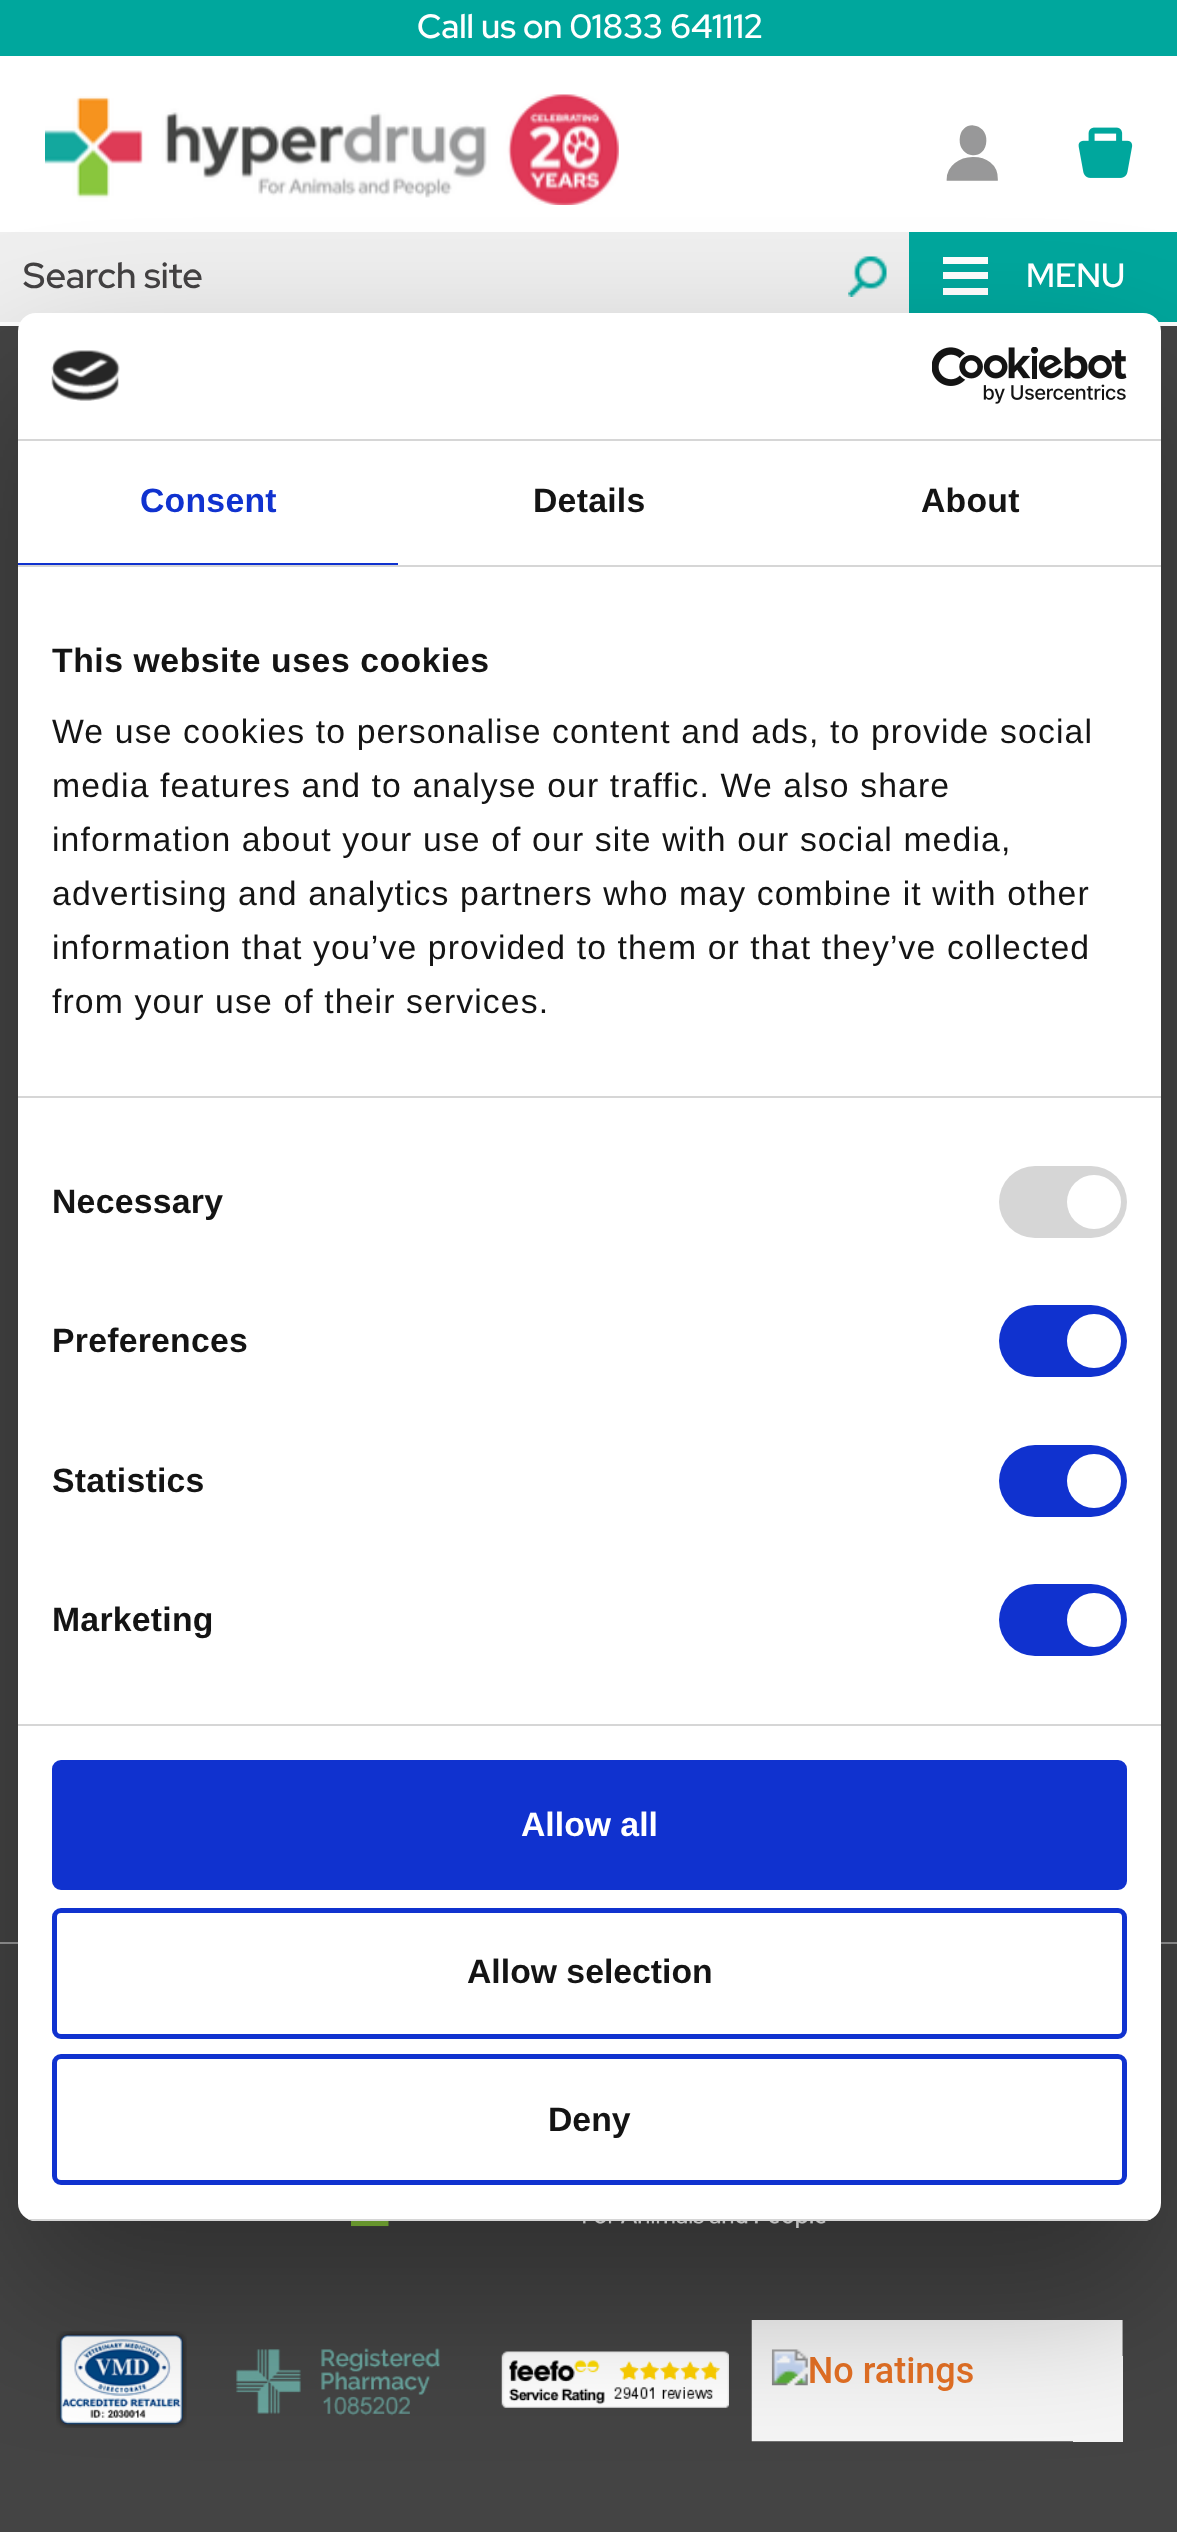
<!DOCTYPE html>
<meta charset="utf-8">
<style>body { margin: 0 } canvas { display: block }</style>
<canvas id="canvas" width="1177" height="2532"></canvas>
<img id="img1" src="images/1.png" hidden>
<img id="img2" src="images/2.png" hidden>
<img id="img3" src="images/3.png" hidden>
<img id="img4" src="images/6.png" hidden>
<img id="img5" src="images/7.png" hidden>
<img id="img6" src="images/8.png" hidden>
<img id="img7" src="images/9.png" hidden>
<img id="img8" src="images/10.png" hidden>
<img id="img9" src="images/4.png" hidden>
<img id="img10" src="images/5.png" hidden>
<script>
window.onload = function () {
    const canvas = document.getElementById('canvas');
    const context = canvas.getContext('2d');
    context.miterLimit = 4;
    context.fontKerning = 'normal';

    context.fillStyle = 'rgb(68, 68, 68)';
    context.fillRect(0, 0, 1177, 2532);
    context.fillStyle = 'rgb(255, 255, 255)';
    context.fillRect(0, 56, 1177, 270);
    context.fillStyle = 'rgb(0, 167, 157)';
    context.fillRect(0, 0, 1177, 56);
    context.drawImage(document.getElementById('img1'), 45, 94, 574, 111);
    context.fillStyle = 'rgb(152, 152, 153)';
    context.beginPath();
    context.moveTo(997, 179);
    context.bezierCurveTo(997, 150, 948, 152, 948, 179);
    context.closePath();
    context.fill();
    context.beginPath();
    context.moveTo(996.5, 179.5);
    context.bezierCurveTo(997.5, 150, 948, 152.5, 948, 179.5);
    context.closePath();
    context.strokeStyle = 'rgb(152, 152, 152)';
    context.lineWidth = 2.7;
    context.stroke();
    context.beginPath();
    context.moveTo(985, 141);
    context.bezierCurveTo(985.5, 123.5, 961.5, 121, 961, 139.5);
    context.bezierCurveTo(960.5, 157.5, 984.5, 159.5, 985, 141);
    context.fill();
    context.stroke();
    context.drawImage(document.getElementById('img2'), 1078, 127, 55, 51);
    context.fillStyle = 'rgb(239, 239, 239)';
    context.fillRect(0, 232, 909, 90);
    context.drawImage(document.getElementById('img3'), 848, 256, 39, 41);
    context.fillStyle = 'rgb(0, 167, 157)';
    context.fillRect(909, 232, 268, 90);
    context.fillStyle = 'rgb(255, 255, 255)';
    context.fillRect(943, 272, 45, 7);
    context.fillRect(943, 257, 45, 7);
    context.fillRect(943, 288, 45, 7);
    context.fillStyle = 'rgb(152, 152, 153)';
    context.fillRect(0, 1942, 1177, 2);
    context.drawImage(document.getElementById('img4'), 350, 2221, 476, 7);
    context.drawImage(document.getElementById('img5'), 56, 2331, 131, 97);
    context.drawImage(document.getElementById('img6'), 236, 2348, 204, 68);
    context.drawImage(document.getElementById('img7'), 501, 2351, 228, 57);
    context.drawImage(document.getElementById('img8'), 751, 2320, 372, 122);
    context.fillStyle = 'rgba(0, 0, 0, 0.3)';
    context.filter = 'blur(76.5px)';
    context.beginPath();
    context.roundRect(18, 385, 1143, 1908, 18);
    context.fill();
    context.filter = 'none';
    context.fillStyle = 'rgb(255, 255, 255)';
    context.beginPath();
    context.roundRect(18, 313, 1143, 1908, 18);
    context.fill();
    context.fillStyle = 'rgb(214, 214, 214)';
    context.fillRect(18, 439, 1143, 2);
    context.drawImage(document.getElementById('img9'), 51, 350, 69, 51);
    context.drawImage(document.getElementById('img10'), 932, 347, 195, 57);
    context.fillRect(18, 565, 1143, 2);
    context.fillStyle = 'rgb(16, 50, 207)';
    context.fillRect(18, 563, 380, 2);
    context.fillStyle = 'rgb(214, 214, 214)';
    context.fillRect(18, 1096, 1143, 2);
    context.fillRect(18, 1724, 1143, 2);
    context.beginPath();
    context.roundRect(999, 1166, 128, 72, 36);
    context.fill();
    context.fillStyle = 'rgb(255, 255, 255)';
    context.beginPath();
    context.arc(1094, 1202, 27, 0, 2 * Math.PI);
    context.fill();
    context.fillStyle = 'rgb(16, 50, 207)';
    context.beginPath();
    context.roundRect(999, 1305, 128, 72, 36);
    context.fill();
    context.fillStyle = 'rgb(255, 255, 255)';
    context.beginPath();
    context.arc(1094, 1341, 27, 0, 2 * Math.PI);
    context.fill();
    context.fillStyle = 'rgb(16, 50, 207)';
    context.beginPath();
    context.roundRect(999, 1445, 128, 72, 36);
    context.fill();
    context.fillStyle = 'rgb(255, 255, 255)';
    context.beginPath();
    context.arc(1094, 1481, 27, 0, 2 * Math.PI);
    context.fill();
    context.fillStyle = 'rgb(16, 50, 207)';
    context.beginPath();
    context.roundRect(999, 1584, 128, 72, 36);
    context.fill();
    context.fillStyle = 'rgb(255, 255, 255)';
    context.beginPath();
    context.arc(1094, 1620, 27, 0, 2 * Math.PI);
    context.fill();
    context.save();
    context.beginPath();
    context.roundRect(18, 313, 1143, 1908, 18);
    context.clip();
    context.fillStyle = 'rgb(214, 214, 214)';
    context.fillRect(28, 2219, 1123, 2);
    context.restore();
    context.fillStyle = 'rgb(16, 50, 207)';
    context.beginPath();
    context.roundRect(54.5, 1762.5, 1070, 125, 6.5);
    context.fill();
    context.strokeStyle = 'rgb(16, 50, 207)';
    context.lineWidth = 5;
    context.stroke();
    context.beginPath();
    context.roundRect(54.5, 1910.5, 1070, 126, 6.5);
    context.stroke();
    context.beginPath();
    context.roundRect(54.5, 2056.5, 1070, 126, 6.5);
    context.stroke();
    context.font = '500 33.75px Red Hat Display';
    context.fillStyle = 'rgb(255, 255, 255)';
    context.fillText('Call us on 01833 641112', 417, 38);
    context.font = '500 36px Red Hat Display';
    context.fillStyle = 'rgb(66, 64, 65)';
    context.fillText('Search site', 23, 288);
    context.font = '500 33.75px Red Hat Display';
    context.fillStyle = 'rgb(255, 255, 255)';
    context.fillText('MENU', 1026, 287);
    context.letterSpacing = '0.25px';
    context.font = 'bold 33.75px Liberation Sans';
    context.fillStyle = 'rgb(16, 50, 207)';
    context.fillText('Consent', 140, 512);
    context.fillStyle = 'rgb(20, 20, 20)';
    context.fillText('Details', 533, 512);
    context.fillText('About', 921, 512);
    context.letterSpacing = '0.55px';
    context.fillText('This website uses cookies', 52, 672);
    context.letterSpacing = '1.12px';
    context.font = '33.75px Liberation Sans';
    context.fillText('We use cookies to personalise content and ads, to provide social', 52, 743);
    context.fillText('media features and to analyse our traffic. We also share', 52, 797);
    context.fillText('information about your use of our site with our social media,', 52, 851);
    context.fillText('advertising and analytics partners who may combine it with other', 52, 905);
    context.fillText('information that you’ve provided to them or that they’ve collected', 52, 959);
    context.fillText('from your use of their services.', 52, 1013);
    context.letterSpacing = '0.25px';
    context.font = 'bold 33.75px Liberation Sans';
    context.fillText('Necessary', 52, 1213);
    context.fillText('Preferences', 52, 1352);
    context.fillText('Statistics', 52, 1492);
    context.fillText('Marketing', 52, 1631);
    context.letterSpacing = '0px';
    context.fillStyle = 'rgb(255, 255, 255)';
    context.fillText('Allow all', 521, 1836);
    context.fillStyle = 'rgb(20, 20, 20)';
    context.fillText('Allow selection', 467, 1983);
    context.fillText('Deny', 548, 2131);
};
</script>
